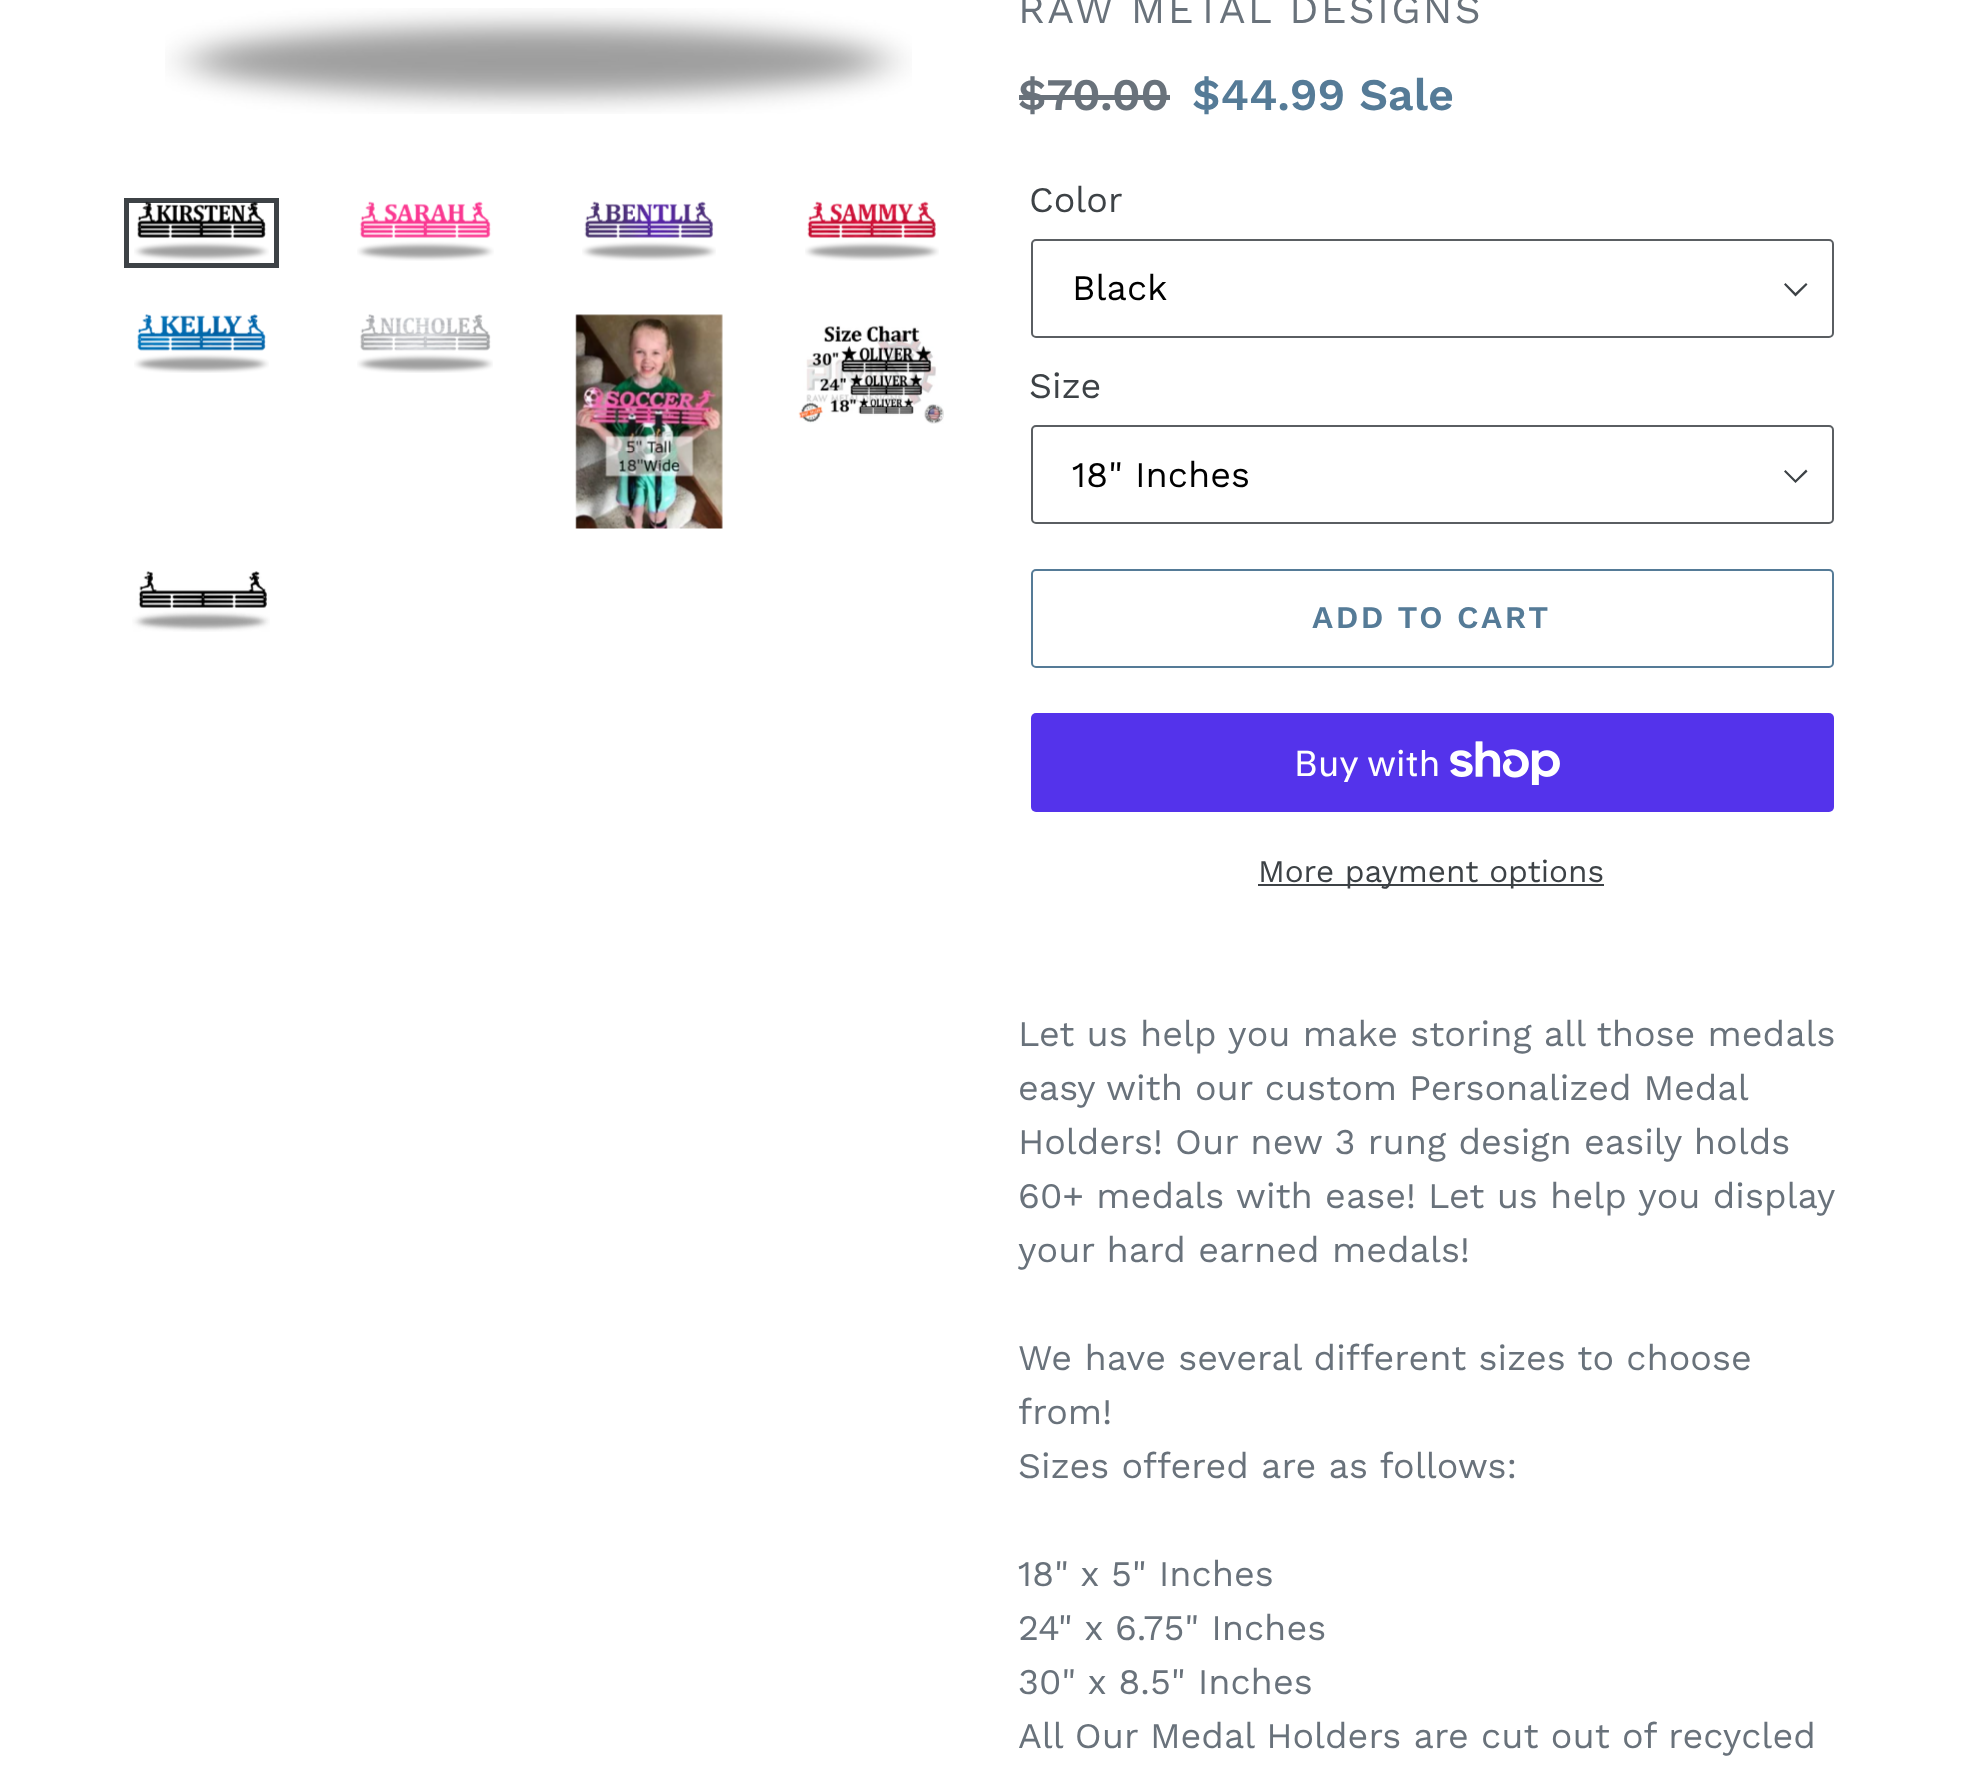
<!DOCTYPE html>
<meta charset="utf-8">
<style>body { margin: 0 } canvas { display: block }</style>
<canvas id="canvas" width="1968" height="1767"></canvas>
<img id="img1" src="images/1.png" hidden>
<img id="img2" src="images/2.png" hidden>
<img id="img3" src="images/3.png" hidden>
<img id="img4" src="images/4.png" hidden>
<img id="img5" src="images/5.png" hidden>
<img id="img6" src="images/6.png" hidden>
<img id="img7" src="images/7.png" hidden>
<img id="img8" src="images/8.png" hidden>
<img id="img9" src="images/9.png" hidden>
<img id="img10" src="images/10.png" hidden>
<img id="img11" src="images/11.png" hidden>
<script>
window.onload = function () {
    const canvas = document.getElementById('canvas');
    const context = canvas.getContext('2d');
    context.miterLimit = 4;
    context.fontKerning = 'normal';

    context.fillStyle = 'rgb(255, 255, 255)';
    context.fillRect(0, 0, 1968, 1767);
    context.drawImage(document.getElementById('img1'), 165, 8, 747, 106);
    context.strokeStyle = 'rgb(61, 66, 70)';
    context.lineWidth = 5;
    context.strokeRect(126.5, 200.5, 150, 65);
    context.drawImage(document.getElementById('img2'), 134, 201, 135, 60);
    context.drawImage(document.getElementById('img3'), 357, 201, 137, 60);
    context.drawImage(document.getElementById('img4'), 582, 201, 134, 60);
    context.drawImage(document.getElementById('img5'), 805, 201, 134, 60);
    context.drawImage(document.getElementById('img6'), 134, 314, 135, 59);
    context.drawImage(document.getElementById('img7'), 357, 314, 136, 59);
    context.drawImage(document.getElementById('img8'), 575, 314, 148, 215);
    context.drawImage(document.getElementById('img9'), 798, 325, 146, 99);
    context.drawImage(document.getElementById('img10'), 132, 571, 138, 61);
    context.fillStyle = 'rgb(105, 114, 123)';
    context.fillRect(1019, 95, 151, 5);
    context.fillStyle = 'rgb(61, 66, 70)';
    context.beginPath();
    context.moveTo(1795.5, 296.5);
    context.lineTo(1784, 284.5);
    context.lineTo(1785.5, 283);
    context.lineTo(1795.5, 293);
    context.lineTo(1806, 283);
    context.lineTo(1807.5, 284.5);
    context.closePath();
    context.fill();
    context.beginPath();
    context.roundRect(1032, 240, 801, 97, 4);
    context.strokeStyle = 'rgb(90, 94, 98)';
    context.lineWidth = 2;
    context.stroke();
    context.beginPath();
    context.moveTo(1795.5, 483);
    context.lineTo(1784, 471.5);
    context.lineTo(1785.5, 470);
    context.lineTo(1795.5, 480);
    context.lineTo(1806, 469.5);
    context.lineTo(1807.5, 471.5);
    context.closePath();
    context.fill();
    context.beginPath();
    context.roundRect(1032, 426, 801, 97, 4);
    context.stroke();
    context.beginPath();
    context.roundRect(1032, 570, 801, 97, 4);
    context.strokeStyle = 'rgb(85, 123, 151)';
    context.stroke();
    context.fillStyle = 'rgb(84, 51, 235)';
    context.beginPath();
    context.roundRect(1031, 713, 803, 99, 5);
    context.fill();
    context.drawImage(document.getElementById('img11'), 1450, 741, 110, 44);
    context.fillStyle = 'rgb(61, 66, 70)';
    context.fillRect(1258, 884, 346, 2);
    context.letterSpacing = '2.25px';
    context.font = '40.5px Work Sans';
    context.fillStyle = 'rgb(105, 114, 123)';
    context.fillText('RAW METAL DESIGNS', 1018, 23);
    context.letterSpacing = '0px';
    context.font = '600 45px Work Sans';
    context.fillText('$70.00', 1018, 110);
    context.fillStyle = 'rgb(85, 123, 151)';
    context.fillText('$44.99 Sale', 1192, 110);
    context.font = '36px Work Sans';
    context.fillStyle = 'rgb(61, 66, 70)';
    context.fillText('Color', 1029, 212);
    context.fillStyle = 'rgb(0, 0, 0)';
    context.fillText('Black', 1072, 300);
    context.fillStyle = 'rgb(61, 66, 70)';
    context.fillText('Size', 1029, 398);
    context.fillStyle = 'rgb(0, 0, 0)';
    context.fillText('18" Inches', 1072, 487);
    context.letterSpacing = '2.5px';
    context.font = '600 31.5px Work Sans';
    context.fillStyle = 'rgb(85, 123, 151)';
    context.fillText('ADD TO CART', 1312, 628);
    context.letterSpacing = '0px';
    context.font = '36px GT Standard';
    context.fillStyle = 'rgb(255, 255, 255)';
    context.fillText('Buy with', 1294, 776);
    context.font = '31.5px Work Sans';
    context.fillStyle = 'rgb(61, 66, 70)';
    context.fillText('More payment options', 1258, 882);
    context.font = '36px Work Sans';
    context.fillStyle = 'rgb(105, 114, 123)';
    context.fillText('Let us help you make storing all those medals', 1018, 1046);
    context.wordSpacing = '-0.25px';
    context.fillText('easy with our custom Personalized Medal', 1018, 1100);
    context.wordSpacing = '0px';
    context.fillText('Holders! Our new 3 rung design easily holds', 1018, 1154);
    context.fillText('60+ medals with ease! Let us help you display', 1018, 1208);
    context.fillText('your hard earned medals!', 1018, 1262);
    context.fillText('We have several different sizes to choose', 1018, 1370);
    context.fillText('from!', 1018, 1424);
    context.fillText('Sizes offered are as follows:', 1018, 1478);
    context.fillText('18" x 5" Inches', 1018, 1586);
    context.fillText('24" x 6.75" Inches', 1018, 1640);
    context.fillText('30" x 8.5" Inches', 1018, 1694);
    context.fillText('All Our Medal Holders are cut out of recycled', 1018, 1748);
};
</script>
